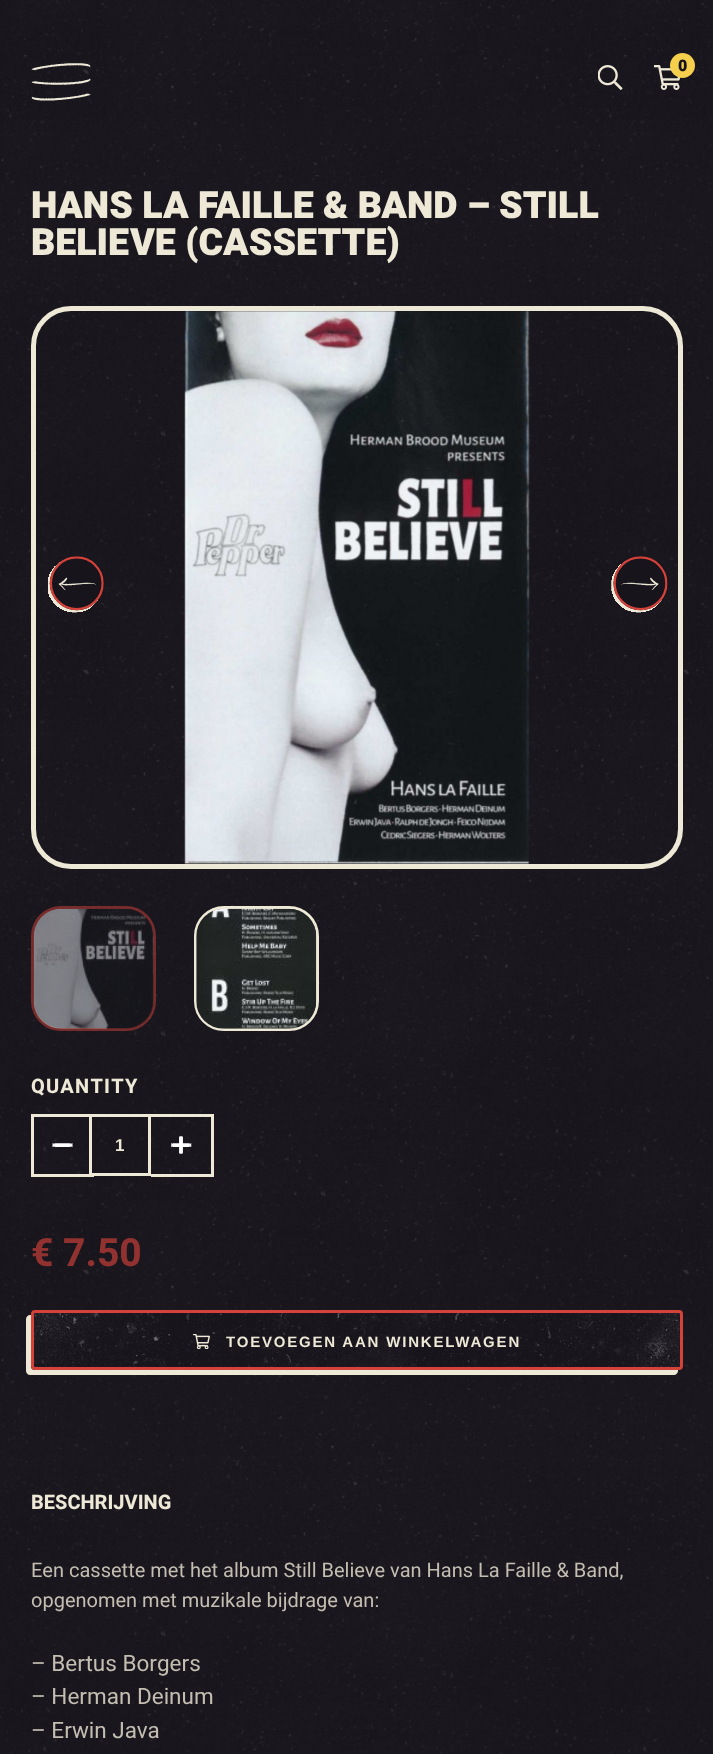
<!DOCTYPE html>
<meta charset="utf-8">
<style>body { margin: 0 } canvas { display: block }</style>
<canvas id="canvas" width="713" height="1754"></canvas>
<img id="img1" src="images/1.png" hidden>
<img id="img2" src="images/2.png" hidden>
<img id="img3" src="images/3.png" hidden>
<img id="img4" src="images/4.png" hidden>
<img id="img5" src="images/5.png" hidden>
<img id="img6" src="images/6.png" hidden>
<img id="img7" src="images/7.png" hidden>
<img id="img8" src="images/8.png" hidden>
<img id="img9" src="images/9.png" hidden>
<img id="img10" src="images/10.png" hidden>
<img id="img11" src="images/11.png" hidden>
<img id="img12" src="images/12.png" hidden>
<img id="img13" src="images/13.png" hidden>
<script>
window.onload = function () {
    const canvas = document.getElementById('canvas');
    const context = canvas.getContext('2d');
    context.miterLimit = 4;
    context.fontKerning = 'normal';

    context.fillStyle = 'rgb(23, 20, 27)';
    context.fillRect(0, 0, 713, 1754);
    context.drawImage(document.getElementById('img1'), 0, 0, 713, 1754);
    context.drawImage(document.getElementById('img2'), 31, 63, 60, 38);
    context.drawImage(document.getElementById('img3'), 598, 65, 25, 25);
    context.drawImage(document.getElementById('img4'), 654, 65, 27, 25);
    context.fillStyle = 'rgb(246, 207, 77)';
    context.beginPath();
    context.arc(682.5, 65.5, 12.5, 0, 2 * Math.PI);
    context.fill();
    context.beginPath();
    context.roundRect(33.5, 308.5, 647, 558, 37.5);
    context.strokeStyle = 'rgb(238, 232, 215)';
    context.lineWidth = 5;
    context.stroke();
    context.drawImage(document.getElementById('img5'), 184, 311, 346, 553);
    context.drawImage(document.getElementById('img6'), 48, 556, 56, 57);
    context.drawImage(document.getElementById('img7'), 611, 556, 57, 57);
    context.beginPath();
    context.roundRect(32.5, 907.5, 122, 122, 28.5);
    context.strokeStyle = 'rgba(212, 66, 58, 0.5)';
    context.lineWidth = 3;
    context.stroke();
    context.drawImage(document.getElementById('img8'), 33, 908, 121, 121);
    context.beginPath();
    context.roundRect(195.5, 907.5, 122, 122, 28.5);
    context.strokeStyle = 'rgb(238, 232, 215)';
    context.stroke();
    context.drawImage(document.getElementById('img9'), 196, 908, 121, 121);
    context.strokeRect(90.5, 1115.5, 59, 59);
    context.fillStyle = 'rgb(238, 232, 215)';
    context.fillRect(31, 1114, 63, 3);
    context.fillRect(31, 1174, 63, 3);
    context.fillRect(31, 1114, 3, 62);
    context.drawImage(document.getElementById('img10'), 52, 1143, 21, 4);
    context.fillRect(151, 1114, 63, 3);
    context.fillRect(211, 1114, 3, 62);
    context.fillRect(151, 1174, 63, 3);
    context.drawImage(document.getElementById('img11'), 171, 1136, 21, 18);
    context.beginPath();
    context.moveTo(30, 1315);
    context.bezierCurveTo(28, 1315, 26, 1317, 26, 1319);
    context.lineTo(26, 1371);
    context.bezierCurveTo(26, 1373, 28, 1375, 30, 1375);
    context.lineTo(674, 1375);
    context.bezierCurveTo(676, 1375, 678, 1373, 678, 1371);
    context.lineTo(678, 1370);
    context.lineTo(35, 1370);
    context.bezierCurveTo(33, 1370, 31, 1368, 31, 1366);
    context.lineTo(31, 1315);
    context.closePath();
    context.fill();
    context.fillStyle = 'rgb(23, 20, 27)';
    context.beginPath();
    context.roundRect(31, 1310, 652, 60, 4);
    context.fill();
    context.drawImage(document.getElementById('img12'), 34, 1313, 646, 57);
    context.beginPath();
    context.roundRect(32.5, 1311.5, 649, 57, 2.5);
    context.strokeStyle = 'rgb(212, 66, 58)';
    context.stroke();
    context.drawImage(document.getElementById('img13'), 193, 1334, 17, 15);
    context.font = '900 16px Heebo';
    context.fillText('0', 678, 71);
    context.font = '900 37.5px Heebo';
    context.fillStyle = 'rgb(238, 232, 215)';
    context.fillText('HANS LA FAILLE & BAND – STILL', 31, 218);
    context.fillText('BELIEVE (CASSETTE)', 31, 255);
    context.letterSpacing = '1.25px';
    context.font = 'bold 20px Heebo';
    context.fillText('QUANTITY', 31, 1093);
    context.letterSpacing = '0px';
    context.font = 'bold 17px Liberation Sans';
    context.fillText('1', 115, 1151);
    context.font = 'bold 39px Heebo';
    context.fillStyle = 'rgb(145, 50, 48)';
    context.fillText('€', 31, 1266);
    context.fillText('7.50', 63, 1266);
    context.letterSpacing = '1.8px';
    context.font = 'bold 15px Liberation Sans';
    context.fillStyle = 'rgb(238, 232, 215)';
    context.fillText('TOEVOEGEN AAN WINKELWAGEN', 226, 1347);
    context.letterSpacing = '0px';
    context.font = 'bold 20px Heebo';
    context.fillText('BESCHRIJVING', 31, 1509);
    context.font = '20px Heebo';
    context.fillStyle = 'rgb(196, 190, 178)';
    context.fillText('Een cassette met het album Still Believe van Hans La Faille & Band,', 31, 1577);
    context.fillText('opgenomen met muzikale bijdrage van:', 31, 1607);
    context.font = '22.5px Heebo';
    context.fillText('– Bertus Borgers', 31, 1671);
    context.fillText('– Herman Deinum', 31, 1704);
    context.fillText('– Erwin Java', 31, 1738);
};
</script>
